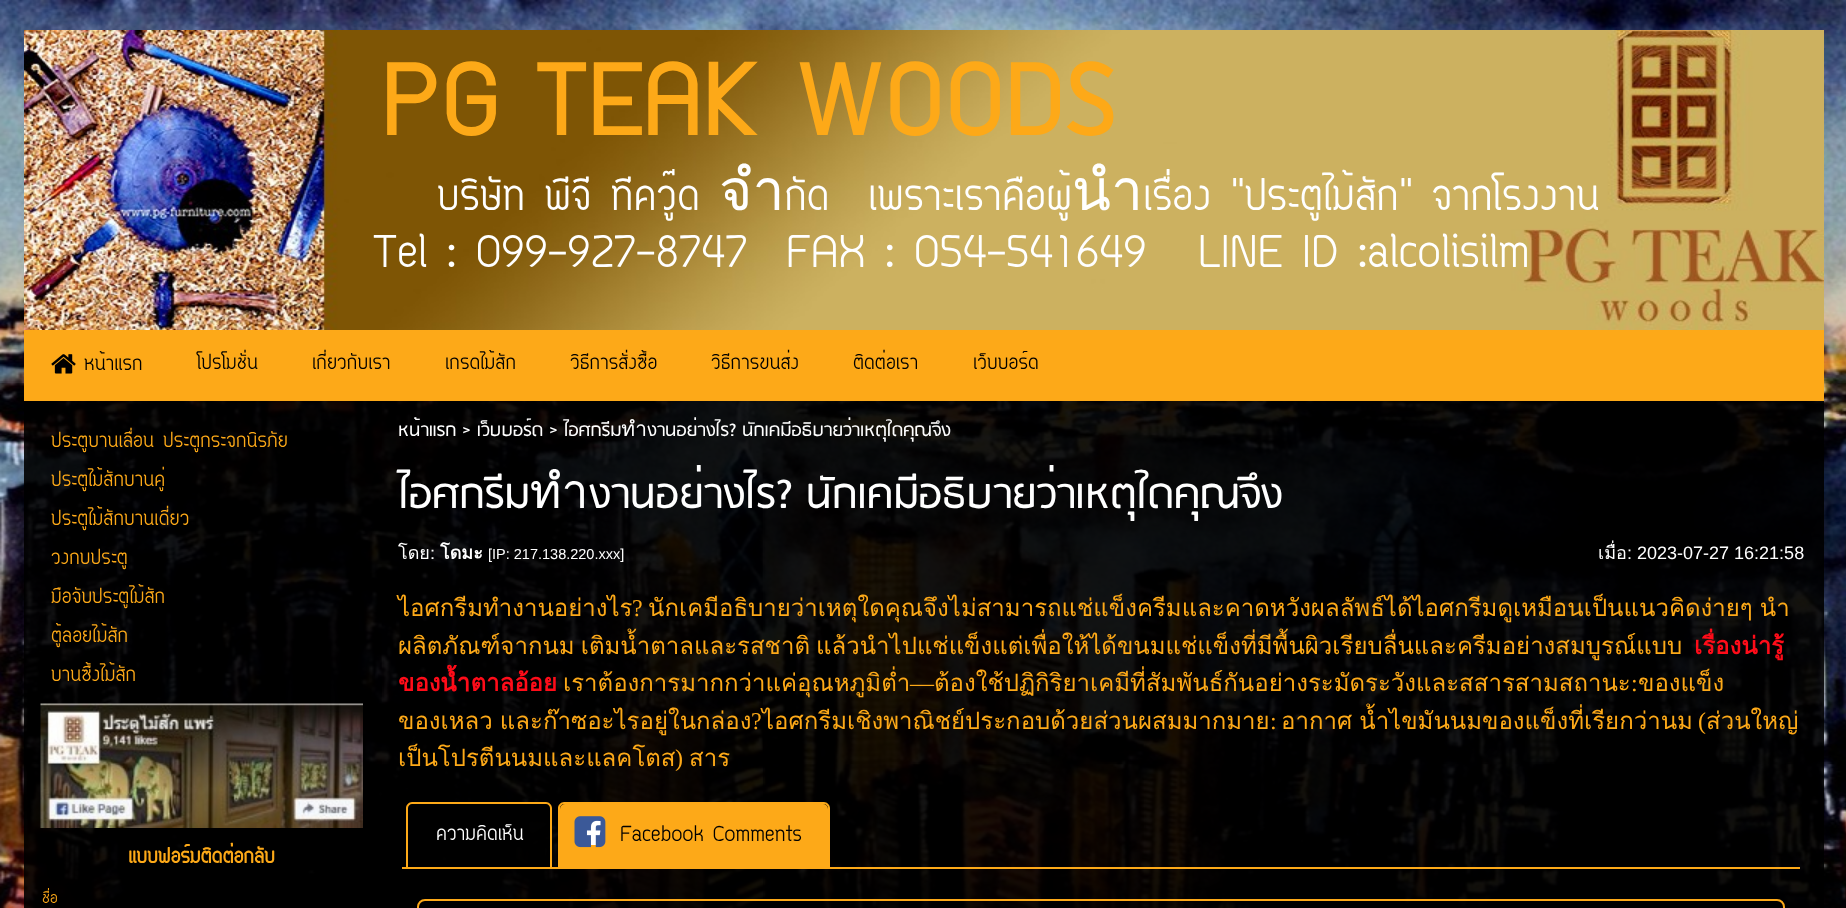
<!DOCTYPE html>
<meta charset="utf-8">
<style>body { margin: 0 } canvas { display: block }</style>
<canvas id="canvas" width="1846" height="908"></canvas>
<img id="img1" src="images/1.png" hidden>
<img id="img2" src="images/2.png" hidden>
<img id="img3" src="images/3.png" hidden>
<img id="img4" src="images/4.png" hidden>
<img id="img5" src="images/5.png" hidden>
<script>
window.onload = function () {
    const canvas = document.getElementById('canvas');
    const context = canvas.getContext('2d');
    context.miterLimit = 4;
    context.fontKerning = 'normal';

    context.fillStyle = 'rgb(255, 255, 255)';
    context.fillRect(0, 0, 1846, 908);
    context.drawImage(document.getElementById('img1'), 0, 0, 1846, 908);
    context.drawImage(document.getElementById('img2'), 24, 30, 1800, 300);
    context.fillStyle = 'rgb(253, 169, 24)';
    context.fillRect(24, 330, 1800, 71);
    context.drawImage(document.getElementById('img3'), 51, 354, 25, 20);
    context.fillStyle = 'rgba(0, 0, 0, 0.9)';
    context.fillRect(24, 401, 1800, 507);
    context.drawImage(document.getElementById('img4'), 40, 703, 323, 125);
    context.fillStyle = 'rgb(253, 169, 24)';
    context.fillRect(402, 867, 1398, 2);
    context.fillStyle = 'rgba(0, 0, 0, 0.9)';
    context.beginPath();
    context.roundRect(408, 804, 143, 63, [5, 5, 0, 0]);
    context.fill();
    context.fillStyle = 'rgb(253, 169, 24)';
    context.beginPath();
    context.moveTo(412, 802);
    context.lineTo(546, 802);
    context.bezierCurveTo(549, 802, 552, 805, 552, 808);
    context.lineTo(552, 867);
    context.lineTo(406, 867);
    context.lineTo(406, 808);
    context.bezierCurveTo(406, 805, 409, 802, 412, 802);
    context.closePath();
    context.moveTo(412, 804);
    context.lineTo(546, 804);
    context.bezierCurveTo(548, 804, 550, 806, 550, 808);
    context.lineTo(550, 867);
    context.lineTo(408, 867);
    context.lineTo(408, 808);
    context.bezierCurveTo(408, 806, 410, 804, 412, 804);
    context.closePath();
    context.fill('evenodd');
    context.beginPath();
    context.roundRect(560, 804, 268, 63, [5, 5, 0, 0]);
    context.fill();
    context.beginPath();
    context.moveTo(564, 802);
    context.lineTo(824, 802);
    context.bezierCurveTo(827, 802, 830, 805, 830, 808);
    context.lineTo(830, 867);
    context.lineTo(558, 867);
    context.lineTo(558, 808);
    context.bezierCurveTo(558, 805, 561, 802, 564, 802);
    context.closePath();
    context.moveTo(564, 804);
    context.lineTo(824, 804);
    context.bezierCurveTo(826, 804, 828, 806, 828, 808);
    context.lineTo(828, 867);
    context.lineTo(560, 867);
    context.lineTo(560, 808);
    context.bezierCurveTo(560, 806, 562, 804, 564, 804);
    context.closePath();
    context.fill('evenodd');
    context.fillStyle = 'rgb(255, 255, 255)';
    context.beginPath();
    context.roundRect(575, 818, 30, 27, 8);
    context.fill();
    context.drawImage(document.getElementById('img5'), 574, 816, 32, 32);
    context.beginPath();
    context.roundRect(418, 900, 1366, 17, 7);
    context.strokeStyle = 'rgb(253, 169, 24)';
    context.lineWidth = 2;
    context.stroke();
    context.font = '120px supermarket';
    context.fillStyle = 'rgb(253, 169, 24)';
    context.fillText('PG TEAK WOODS', 382, 135);
    context.font = '57px Circular';
    context.fillStyle = 'rgb(255, 255, 255)';
    context.fillText('บริษัท พีจี ทีควู๊ด จำกัด  เพราะเราคือผู้นำเรื่อง "ประตูไม้สัก" จากโรงงาน', 437, 210);
    context.fillText('Tel : 099-927-8747  FAX : 054-541649', 373, 267);
    context.fillText('LINE ID :alcolisilm', 1198, 267);
    context.font = '27px Circular';
    context.fillStyle = 'rgb(0, 0, 0)';
    context.fillText('หน้าแรก', 84, 370);
    context.fillText('โปรโมชั่น', 197, 369);
    context.fillText('เกี่ยวกับเรา', 312, 369);
    context.fillText('เกรดไม้สัก', 445, 369);
    context.fillText('วิธีการสั่งซื้อ', 570, 369);
    context.fillText('วิธีการขนส่ง', 711, 369);
    context.fillText('ติดต่อเรา', 853, 369);
    context.fillText('เว็บบอร์ด', 973, 369);
    context.fillStyle = 'rgb(253, 169, 24)';
    context.fillText('ประตูบานเลื่อน ประตูกระจกนิรภัย', 51, 447);
    context.fillText('ประตูไม้สักบานคู่', 51, 486);
    context.fillText('ประตูไม้สักบานเดี่ยว', 51, 525);
    context.fillText('วงกบประตู', 51, 564);
    context.fillText('มือจับประตูไม้สัก', 51, 603);
    context.fillText('ตู้ลอยไม้สัก', 51, 642);
    context.fillText('บานซื้งไม้สัก', 51, 681);
    context.font = 'bold 27px Circular';
    context.fillText('แบบฟอร์มติดต่อกลับ', 128, 863);
    context.font = '21px Circular';
    context.fillText('ชื่อ', 42, 903);
    context.font = '21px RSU';
    context.fillStyle = 'rgb(255, 255, 255)';
    context.fillText('หน้าแรก > เว็บบอร์ด > ไอศกรีมทำงานอย่างไร? นักเคมีอธิบายว่าเหตุใดคุณจึง', 398, 436);
    context.font = '48px RSU';
    context.fillText('ไอศกรีมทำงานอย่างไร? นักเคมีอธิบายว่าเหตุใดคุณจึง', 398, 508);
    context.font = '18px Loma';
    context.fillText('โดย:', 398, 559);
    context.font = 'bold 18px Loma';
    context.fillText('โดมะ', 440, 559);
    context.font = '14.5px Liberation Sans';
    context.fillText('[IP: 217.138.220.xxx]', 488, 559);
    context.font = '18px Loma';
    context.fillText('เมื่อ', 1598, 559);
    context.font = '18px Liberation Sans';
    context.fillText(': 2023-07-27 16:21:58', 1627, 559);
    context.font = '24px Loma';
    context.fillStyle = 'rgb(253, 169, 24)';
    context.fillText('ไอศกรีมทำงานอย่างไร', 398, 616);
    context.font = '24px Liberation Serif';
    context.fillText('?', 632, 616);
    context.wordSpacing = '-1px';
    context.font = '24px Loma';
    context.fillText('นักเคมีอธิบายว่าเหตุใดคุณจึงไม่สามารถแช่แข็งครีมและคาดหวังผลลัพธ์ได้ไอศกรีมดูเหมือนเป็นแนวคิดง่ายๆ นำ', 648, 616);
    context.wordSpacing = '-2px';
    context.fillText('ผลิตภัณฑ์จากนม เติมน้ำตาลและรสชาติ แล้วนำไปแช่แข็งแต่เพื่อให้ได้ขนมแช่แข็งที่มีพื้นผิวเรียบลื่นและครีมอย่างสมบูรณ์แบบ', 398, 654);
    context.wordSpacing = '0px';
    context.font = 'bold 24px Loma';
    context.fillStyle = 'rgb(255, 12, 25)';
    context.fillText('เรื่องน่ารู้', 1694, 654);
    context.fillText('ของน้ำตาลอ้อย', 398, 691);
    context.font = '24px Loma';
    context.fillStyle = 'rgb(253, 169, 24)';
    context.fillText('เราต้องการมากกว่าแค่อุณหภูมิต่ำ', 563, 691);
    context.font = '24px Liberation Serif';
    context.fillText('—', 910, 691);
    context.font = '24px Loma';
    context.fillText('ต้องใช้ปฏิกิริยาเคมีที่สัมพันธ์กันอย่างระมัดระวังและสสารสามสถานะ', 934, 691);
    context.font = '24px Liberation Serif';
    context.fillText(':', 1631, 691);
    context.font = '24px Loma';
    context.fillText('ของแข็ง', 1638, 691);
    context.wordSpacing = '-1px';
    context.fillText('ของเหลว และก๊าซอะไรอยู่ในกล่อง', 398, 729);
    context.fillText('อากาศ น้ำไขมันนมของแข็งที่เรียกว่านม', 1281, 729);
    context.wordSpacing = '0px';
    context.font = '24px Liberation Serif';
    context.fillText('?', 751, 729);
    context.font = '24px Loma';
    context.fillText('ไอศกรีมเชิงพาณิชย์ประกอบด้วยส่วนผสมมากมาย', 762, 729);
    context.font = '24px Liberation Serif';
    context.fillText(':', 1270, 729);
    context.fillText('(', 1698, 729);
    context.font = '24px Loma';
    context.fillText('ส่วนใหญ่', 1706, 729);
    context.fillText('เป็นโปรตีนนมและแลคโตส', 398, 766);
    context.font = '24px Liberation Serif';
    context.fillText(')', 675, 766);
    context.font = '24px Loma';
    context.fillText('สาร', 689, 766);
    context.font = '27px Circular';
    context.fillStyle = 'rgb(255, 255, 255)';
    context.fillText('ความคิดเห็น', 436, 840);
    context.fillStyle = 'rgb(0, 0, 0)';
    context.fillText('Facebook Comments', 620, 841);
};
</script>
